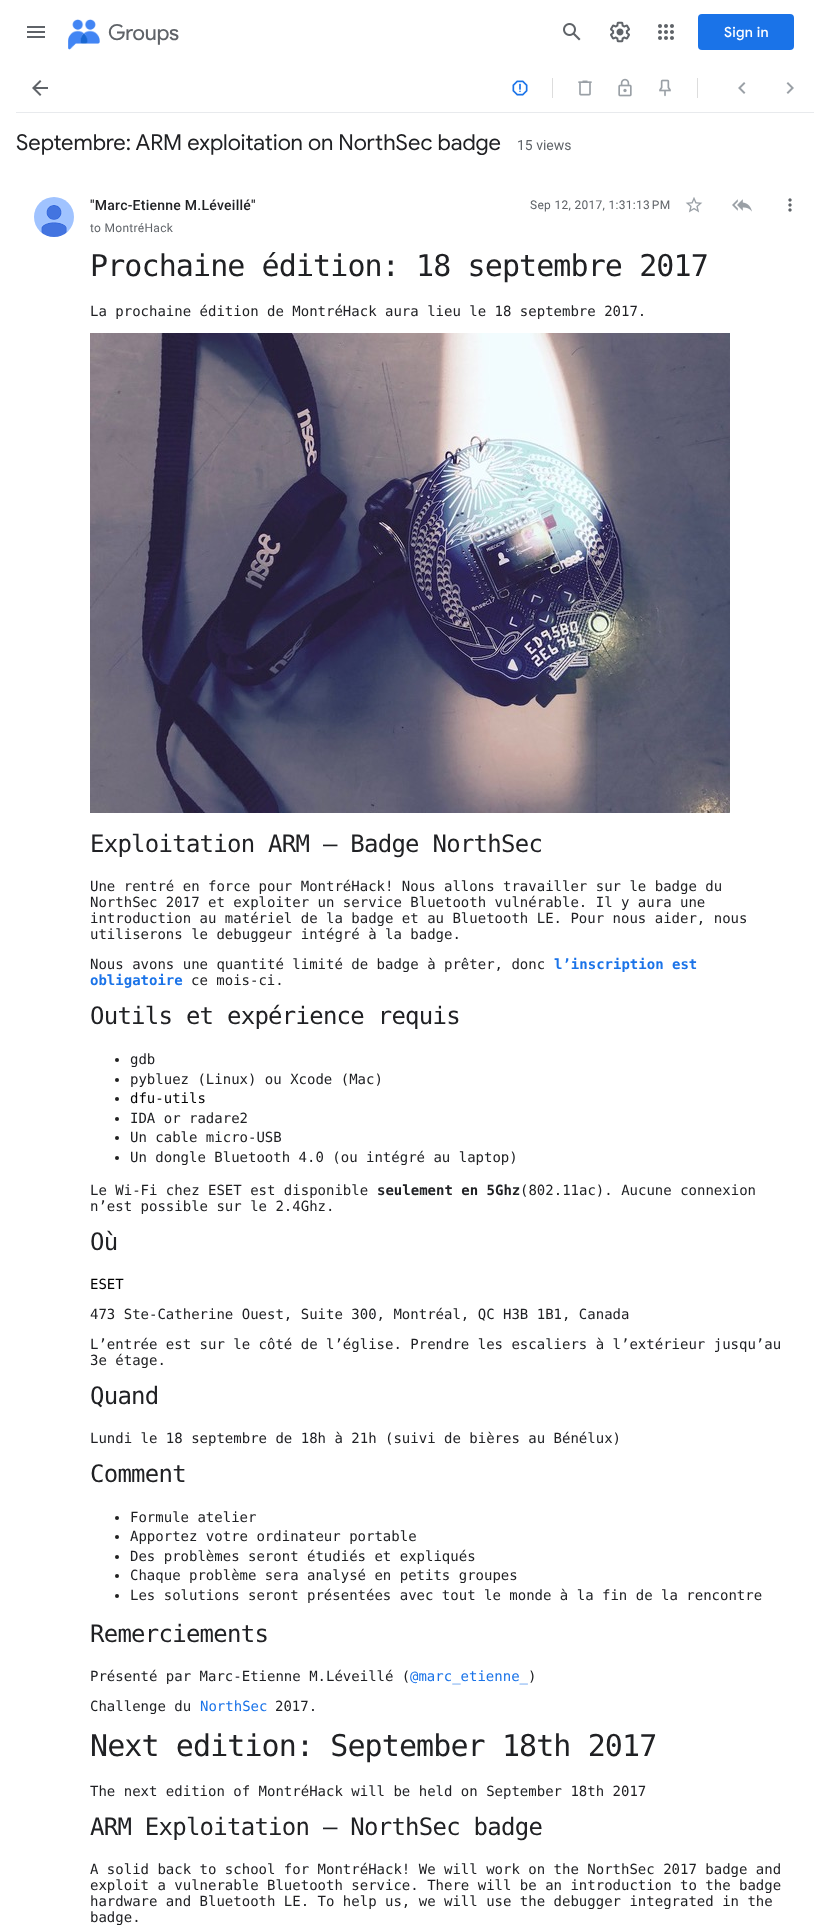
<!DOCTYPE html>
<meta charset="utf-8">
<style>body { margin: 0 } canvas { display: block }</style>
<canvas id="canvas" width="814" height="1925"></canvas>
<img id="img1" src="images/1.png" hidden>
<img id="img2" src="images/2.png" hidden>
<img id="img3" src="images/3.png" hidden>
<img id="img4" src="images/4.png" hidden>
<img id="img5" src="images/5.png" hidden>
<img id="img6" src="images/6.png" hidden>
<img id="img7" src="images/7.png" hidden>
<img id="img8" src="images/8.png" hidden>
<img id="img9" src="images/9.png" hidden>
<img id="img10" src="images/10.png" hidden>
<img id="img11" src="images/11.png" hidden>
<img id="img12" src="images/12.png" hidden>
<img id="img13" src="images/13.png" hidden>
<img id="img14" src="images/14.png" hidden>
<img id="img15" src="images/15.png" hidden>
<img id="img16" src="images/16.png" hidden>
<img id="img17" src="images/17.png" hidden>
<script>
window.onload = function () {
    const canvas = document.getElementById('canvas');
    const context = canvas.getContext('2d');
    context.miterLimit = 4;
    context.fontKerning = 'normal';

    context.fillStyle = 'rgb(255, 255, 255)';
    context.fillRect(0, 0, 814, 1925);
    context.drawImage(document.getElementById('img1'), 27, 26, 18, 12);
    context.drawImage(document.getElementById('img2'), 68, 19, 32, 31);
    context.drawImage(document.getElementById('img3'), 563, 23, 18, 18);
    context.drawImage(document.getElementById('img4'), 610, 21, 20, 22);
    context.drawImage(document.getElementById('img5'), 658, 24, 16, 16);
    context.fillStyle = 'rgb(26, 115, 232)';
    context.beginPath();
    context.roundRect(698, 14, 96, 36, 4);
    context.fill();
    context.fillStyle = 'rgb(232, 234, 237)';
    context.fillRect(16, 112, 798, 1);
    context.drawImage(document.getElementById('img6'), 32, 80, 16, 16);
    context.drawImage(document.getElementById('img7'), 512, 80, 16, 16);
    context.fillStyle = 'rgb(221, 221, 221)';
    context.fillRect(552, 78, 1, 20);
    context.drawImage(document.getElementById('img8'), 578, 80, 14, 16);
    context.drawImage(document.getElementById('img9'), 618, 78, 14, 19);
    context.drawImage(document.getElementById('img10'), 659, 79, 12, 18);
    context.fillRect(697, 78, 1, 20);
    context.drawImage(document.getElementById('img11'), 738, 82, 8, 12);
    context.drawImage(document.getElementById('img12'), 786, 82, 8, 12);
    context.drawImage(document.getElementById('img13'), 34, 197, 40, 40);
    context.drawImage(document.getElementById('img14'), 685, 197, 18, 16);
    context.drawImage(document.getElementById('img15'), 732, 199, 20, 13);
    context.drawImage(document.getElementById('img16'), 788, 198, 4, 14);
    context.drawImage(document.getElementById('img17'), 90, 333, 640, 480);
    context.fillStyle = 'rgb(33, 33, 33)';
    context.beginPath();
    context.arc(117, 1060, 2, 0, 2 * Math.PI);
    context.fill();
    context.beginPath();
    context.arc(117, 1080, 2, 0, 2 * Math.PI);
    context.fill();
    context.beginPath();
    context.arc(117, 1099, 2, 0, 2 * Math.PI);
    context.fill();
    context.beginPath();
    context.arc(117, 1119, 2, 0, 2 * Math.PI);
    context.fill();
    context.beginPath();
    context.arc(117, 1138, 2, 0, 2 * Math.PI);
    context.fill();
    context.beginPath();
    context.arc(117, 1158, 2, 0, 2 * Math.PI);
    context.fill();
    context.beginPath();
    context.arc(117, 1518, 2, 0, 2 * Math.PI);
    context.fill();
    context.beginPath();
    context.arc(117, 1537, 2, 0, 2 * Math.PI);
    context.fill();
    context.beginPath();
    context.arc(117, 1557, 2, 0, 2 * Math.PI);
    context.fill();
    context.beginPath();
    context.arc(117, 1576, 2, 0, 2 * Math.PI);
    context.fill();
    context.beginPath();
    context.arc(117, 1596, 2, 0, 2 * Math.PI);
    context.fill();
    context.font = '22px Product Sans';
    context.fillStyle = 'rgb(95, 99, 104)';
    context.fillText('Groups', 108, 40);
    context.letterSpacing = '0.25px';
    context.font = '500 14px Google Sans';
    context.fillStyle = 'rgb(255, 255, 255)';
    context.fillText('Sign in', 724, 37);
    context.letterSpacing = '0px';
    context.font = '22px Google Sans';
    context.fillStyle = 'rgb(32, 33, 36)';
    context.fillText('Septembre: ARM exploitation on NorthSec badge', 16, 150);
    context.font = '14px Roboto';
    context.fillStyle = 'rgb(95, 99, 104)';
    context.fillText('15 views', 517, 150);
    context.letterSpacing = '0.25px';
    context.font = '500 14px Roboto';
    context.fillStyle = 'rgb(32, 33, 36)';
    context.fillText('"Marc-Etienne M.Léveillé"', 90, 210);
    context.letterSpacing = '0.3px';
    context.font = '12px Roboto';
    context.fillStyle = 'rgb(95, 99, 104)';
    context.fillText('Sep 12, 2017, 1:31:13 PM', 530, 209);
    context.fillText('to MontréHack', 90, 232);
    context.letterSpacing = '-0.9px';
    context.font = '30px DejaVu Sans Mono';
    context.fillStyle = 'rgb(32, 33, 36)';
    context.fillText('Prochaine édition: 18 septembre 2017', 90, 276);
    context.letterSpacing = '0px';
    context.font = '14px DejaVu Sans Mono';
    context.fillText('La prochaine édition de MontréHack aura lieu le 18 septembre 2017.', 90, 316);
    context.letterSpacing = '-0.75px';
    context.font = '24px DejaVu Sans Mono';
    context.fillText('Exploitation ARM – Badge NorthSec', 90, 852);
    context.letterSpacing = '0px';
    context.font = '14px DejaVu Sans Mono';
    context.fillText('Une rentré en force pour MontréHack! Nous allons travailler sur le badge du', 90, 891);
    context.fillText('NorthSec 2017 et exploiter un service Bluetooth vulnérable. Il y aura une', 90, 907);
    context.fillText('introduction au matériel de la badge et au Bluetooth LE. Pour nous aider, nous', 90, 923);
    context.fillText('utiliserons le debuggeur intégré à la badge.', 90, 939);
    context.fillText('Nous avons une quantité limité de badge à prêter, donc', 90, 969);
    context.font = 'bold 14px DejaVu Sans Mono';
    context.fillStyle = 'rgb(26, 115, 232)';
    context.fillText('l’inscription est', 554, 969);
    context.fillText('obligatoire', 90, 985);
    context.font = '14px DejaVu Sans Mono';
    context.fillStyle = 'rgb(32, 33, 36)';
    context.fillText('ce mois-ci.', 191, 985);
    context.letterSpacing = '-0.75px';
    context.font = '24px DejaVu Sans Mono';
    context.fillText('Outils et expérience requis', 90, 1024);
    context.letterSpacing = '0px';
    context.font = '14px DejaVu Sans Mono';
    context.fillText('gdb', 130, 1064);
    context.fillText('pybluez (Linux) ou Xcode (Mac)', 130, 1084);
    context.fillStyle = 'rgb(0, 0, 0)';
    context.fillText('dfu-utils', 130, 1103);
    context.fillStyle = 'rgb(32, 33, 36)';
    context.fillText('IDA or radare2', 130, 1123);
    context.fillText('Un cable micro-USB', 130, 1142);
    context.fillText('Un dongle Bluetooth 4.0 (ou intégré au laptop)', 130, 1162);
    context.fillText('Le Wi-Fi chez ESET est disponible', 90, 1195);
    context.font = 'bold 14px DejaVu Sans Mono';
    context.fillText('seulement en 5Ghz', 377, 1195);
    context.font = '14px DejaVu Sans Mono';
    context.fillText('(802.11ac). Aucune connexion', 520, 1195);
    context.fillText('n’est possible sur le 2.4Ghz.', 90, 1211);
    context.letterSpacing = '-0.75px';
    context.font = '24px DejaVu Sans Mono';
    context.fillText('Où', 90, 1250);
    context.letterSpacing = '0px';
    context.font = '14px DejaVu Sans Mono';
    context.fillStyle = 'rgb(0, 0, 0)';
    context.fillText('ESET', 90, 1289);
    context.fillStyle = 'rgb(32, 33, 36)';
    context.fillText('473 Ste-Catherine Ouest, Suite 300, Montréal, QC H3B 1B1, Canada', 90, 1319);
    context.fillText('L’entrée est sur le côté de l’église. Prendre les escaliers à l’extérieur jusqu’au', 90, 1349);
    context.fillText('3e étage.', 90, 1365);
    context.letterSpacing = '-0.75px';
    context.font = '24px DejaVu Sans Mono';
    context.fillText('Quand', 90, 1404);
    context.letterSpacing = '0px';
    context.font = '14px DejaVu Sans Mono';
    context.fillText('Lundi le 18 septembre de 18h à 21h (suivi de bières au Bénélux)', 90, 1443);
    context.letterSpacing = '-0.75px';
    context.font = '24px DejaVu Sans Mono';
    context.fillText('Comment', 90, 1482);
    context.letterSpacing = '0px';
    context.font = '14px DejaVu Sans Mono';
    context.fillText('Formule atelier', 130, 1522);
    context.fillText('Apportez votre ordinateur portable', 130, 1541);
    context.fillText('Des problèmes seront étudiés et expliqués', 130, 1561);
    context.fillText('Chaque problème sera analysé en petits groupes', 130, 1580);
    context.fillText('Les solutions seront présentées avec tout le monde à la fin de la rencontre', 130, 1600);
    context.letterSpacing = '-0.75px';
    context.font = '24px DejaVu Sans Mono';
    context.fillText('Remerciements', 90, 1642);
    context.letterSpacing = '0px';
    context.font = '14px DejaVu Sans Mono';
    context.fillText('Présenté par Marc-Etienne M.Léveillé (', 90, 1681);
    context.fillStyle = 'rgb(26, 115, 232)';
    context.fillText('@marc_etienne_', 410, 1681);
    context.fillStyle = 'rgb(32, 33, 36)';
    context.fillText(')', 528, 1681);
    context.fillText('Challenge du', 90, 1711);
    context.fillStyle = 'rgb(26, 115, 232)';
    context.fillText('NorthSec', 200, 1711);
    context.fillStyle = 'rgb(32, 33, 36)';
    context.fillText('2017.', 275, 1711);
    context.letterSpacing = '-0.9px';
    context.font = '30px DejaVu Sans Mono';
    context.fillText('Next edition: September 18th 2017', 90, 1756);
    context.letterSpacing = '0px';
    context.font = '14px DejaVu Sans Mono';
    context.fillText('The next edition of MontréHack will be held on September 18th 2017', 90, 1796);
    context.letterSpacing = '-0.75px';
    context.font = '24px DejaVu Sans Mono';
    context.fillText('ARM Exploitation – NorthSec badge', 90, 1835);
    context.letterSpacing = '0px';
    context.font = '14px DejaVu Sans Mono';
    context.fillText('A solid back to school for MontréHack! We will work on the NorthSec 2017 badge and', 90, 1874);
    context.fillText('exploit a vulnerable Bluetooth service. There will be an introduction to the badge', 90, 1890);
    context.fillText('hardware and Bluetooth LE. To help us, we will use the debugger integrated in the', 90, 1906);
    context.fillText('badge.', 90, 1922);
};
</script>
